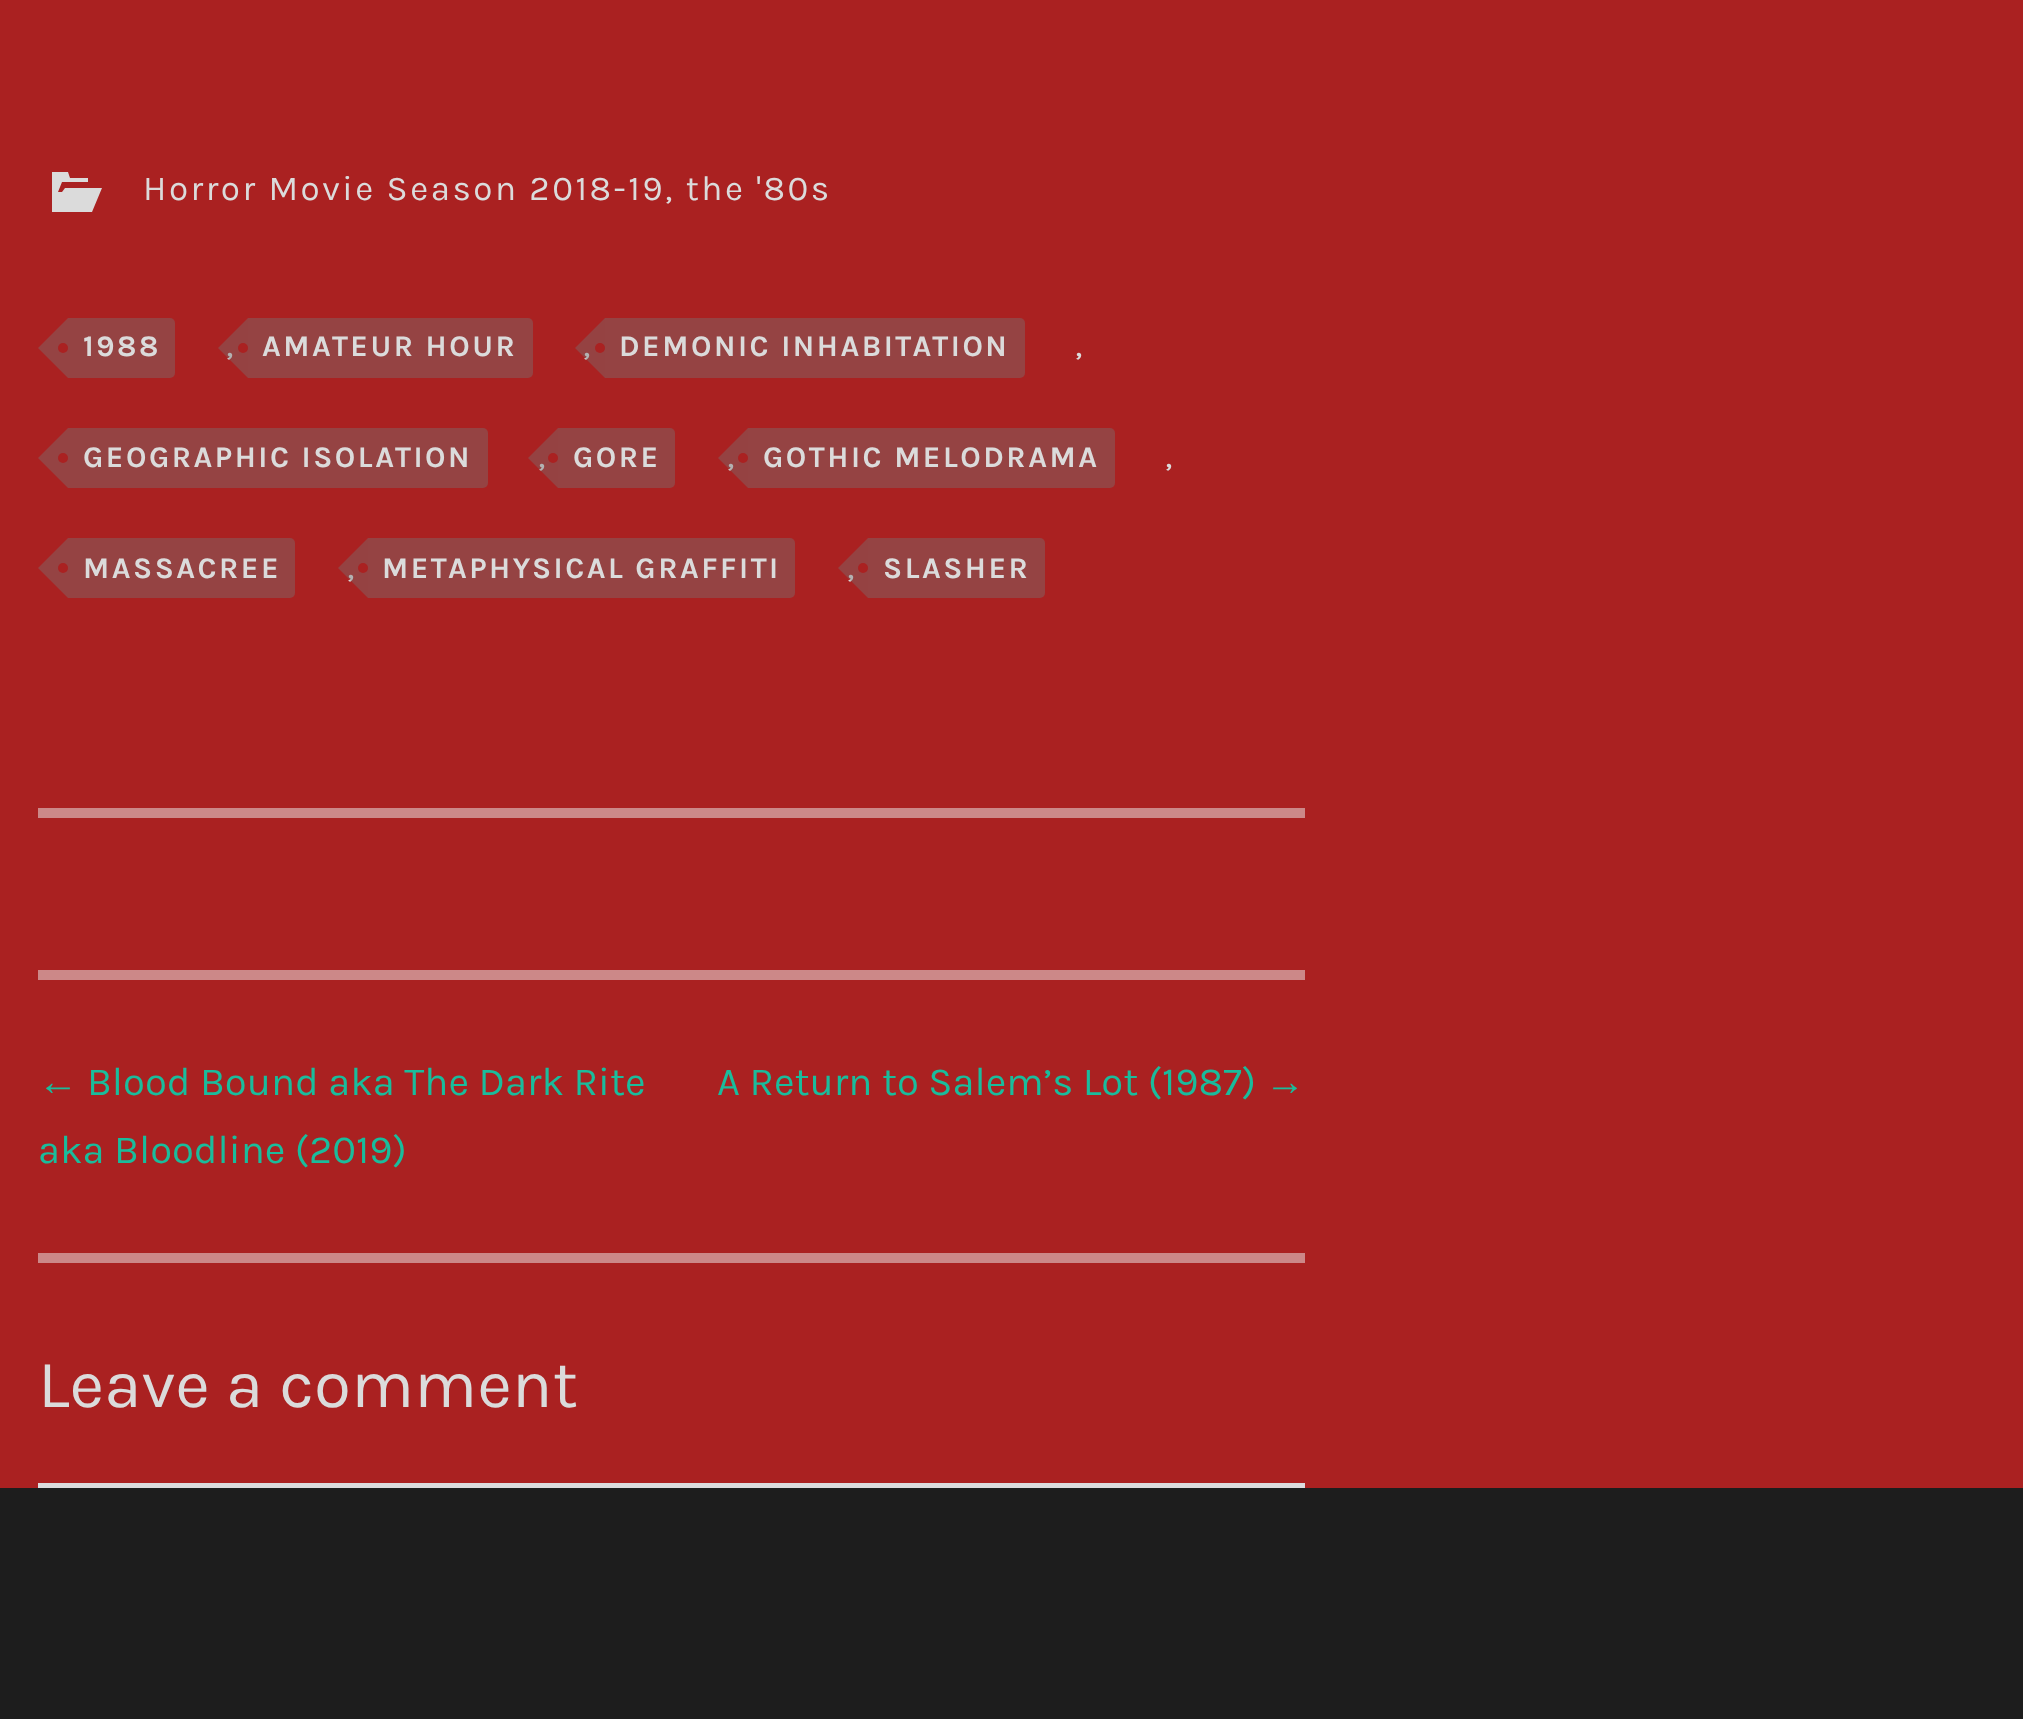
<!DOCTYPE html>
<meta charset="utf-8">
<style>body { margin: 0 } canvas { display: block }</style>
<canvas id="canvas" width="2023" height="1719"></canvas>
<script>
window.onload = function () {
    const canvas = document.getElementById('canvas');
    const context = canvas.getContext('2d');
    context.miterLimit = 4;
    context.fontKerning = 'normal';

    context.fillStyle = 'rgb(170, 33, 33)';
    context.fillRect(0, 0, 2023, 1719);
    context.fillStyle = 'rgb(204, 136, 136)';
    context.fillRect(38, 808, 1267, 10);
    context.fillStyle = 'rgb(219, 219, 219)';
    context.beginPath();
    context.moveTo(65, 188);
    context.lineTo(102, 188);
    context.lineTo(92, 212);
    context.lineTo(52, 212);
    context.lineTo(52, 172);
    context.lineTo(68, 172);
    context.lineTo(70, 178);
    context.lineTo(88, 178);
    context.lineTo(88, 182);
    context.lineTo(62, 182);
    context.lineTo(58, 192);
    context.lineTo(62, 192);
    context.closePath();
    context.fill();
    context.fillStyle = 'rgb(149, 67, 67)';
    context.beginPath();
    context.roundRect(68, 318, 107, 60, [0, 5, 5, 0]);
    context.fill();
    context.beginPath();
    context.moveTo(68, 318);
    context.lineTo(68, 378);
    context.lineTo(38, 348);
    context.closePath();
    context.fill();
    context.fillStyle = 'rgb(170, 33, 33)';
    context.beginPath();
    context.arc(63, 348, 5, 0, 2 * Math.PI);
    context.fill();
    context.fillStyle = 'rgb(149, 67, 67)';
    context.beginPath();
    context.roundRect(248, 318, 285, 60, [0, 5, 5, 0]);
    context.fill();
    context.beginPath();
    context.roundRect(605, 318, 420, 60, [0, 5, 5, 0]);
    context.fill();
    context.beginPath();
    context.roundRect(68, 428, 420, 60, [0, 5, 5, 0]);
    context.fill();
    context.beginPath();
    context.moveTo(68, 428);
    context.lineTo(68, 488);
    context.lineTo(38, 458);
    context.closePath();
    context.fill();
    context.fillStyle = 'rgb(170, 33, 33)';
    context.beginPath();
    context.arc(63, 458, 5, 0, 2 * Math.PI);
    context.fill();
    context.fillStyle = 'rgb(149, 67, 67)';
    context.beginPath();
    context.roundRect(558, 428, 117, 60, [0, 5, 5, 0]);
    context.fill();
    context.beginPath();
    context.roundRect(748, 428, 367, 60, [0, 5, 5, 0]);
    context.fill();
    context.beginPath();
    context.roundRect(68, 538, 227, 60, [0, 5, 5, 0]);
    context.fill();
    context.beginPath();
    context.moveTo(68, 538);
    context.lineTo(68, 598);
    context.lineTo(38, 568);
    context.closePath();
    context.fill();
    context.fillStyle = 'rgb(170, 33, 33)';
    context.beginPath();
    context.arc(63, 568, 5, 0, 2 * Math.PI);
    context.fill();
    context.fillStyle = 'rgb(149, 67, 67)';
    context.beginPath();
    context.roundRect(368, 538, 427, 60, [0, 5, 5, 0]);
    context.fill();
    context.beginPath();
    context.roundRect(868, 538, 177, 60, [0, 5, 5, 0]);
    context.fill();
    context.fillStyle = 'rgb(204, 136, 136)';
    context.fillRect(38, 970, 1267, 10);
    context.fillRect(38, 1253, 1267, 10);
    context.fillStyle = 'rgb(220, 220, 222)';
    context.fillRect(38, 1483, 1267, 5);
    context.fillStyle = 'rgb(29, 29, 29)';
    context.fillRect(0, 1488, 2023, 231);
    context.letterSpacing = '2.5px';
    context.font = '35px Karla';
    context.fillStyle = 'rgb(219, 219, 219)';
    context.fillText('Horror Movie Season 2018-19, the \'80s', 143, 200);
    context.font = 'bold 30px Karla';
    context.fillText('1988', 83, 356);
    context.font = '35px Karla';
    context.fillText(',', 226, 356);
    context.fillStyle = 'rgba(118, 118, 118, 0.4)';
    context.beginPath();
    context.moveTo(248, 318);
    context.lineTo(248, 378);
    context.lineTo(218, 348);
    context.closePath();
    context.fill();
    context.font = 'bold 30px Karla';
    context.fillStyle = 'rgb(219, 219, 219)';
    context.fillText('AMATEUR HOUR', 262, 356);
    context.fillStyle = 'rgb(170, 33, 33)';
    context.beginPath();
    context.arc(243, 348, 5, 0, 2 * Math.PI);
    context.fill();
    context.font = '35px Karla';
    context.fillStyle = 'rgb(219, 219, 219)';
    context.fillText(',', 583, 356);
    context.fillStyle = 'rgba(118, 118, 118, 0.4)';
    context.beginPath();
    context.moveTo(605, 318);
    context.lineTo(605, 378);
    context.lineTo(575, 348);
    context.closePath();
    context.fill();
    context.font = 'bold 30px Karla';
    context.fillStyle = 'rgb(219, 219, 219)';
    context.fillText('DEMONIC INHABITATION', 619, 356);
    context.fillStyle = 'rgb(170, 33, 33)';
    context.beginPath();
    context.arc(600, 348, 5, 0, 2 * Math.PI);
    context.fill();
    context.font = '35px Karla';
    context.fillStyle = 'rgb(219, 219, 219)';
    context.fillText(',', 1075, 356);
    context.font = 'bold 30px Karla';
    context.fillText('GEOGRAPHIC ISOLATION', 83, 467);
    context.font = '35px Karla';
    context.fillText(',', 538, 467);
    context.fillStyle = 'rgba(118, 118, 118, 0.4)';
    context.beginPath();
    context.moveTo(558, 428);
    context.lineTo(558, 488);
    context.lineTo(528, 458);
    context.closePath();
    context.fill();
    context.font = 'bold 30px Karla';
    context.fillStyle = 'rgb(219, 219, 219)';
    context.fillText('GORE', 573, 467);
    context.fillStyle = 'rgb(170, 33, 33)';
    context.beginPath();
    context.arc(553, 458, 5, 0, 2 * Math.PI);
    context.fill();
    context.font = '35px Karla';
    context.fillStyle = 'rgb(219, 219, 219)';
    context.fillText(',', 727, 467);
    context.fillStyle = 'rgba(118, 118, 118, 0.4)';
    context.beginPath();
    context.moveTo(748, 428);
    context.lineTo(748, 488);
    context.lineTo(718, 458);
    context.closePath();
    context.fill();
    context.font = 'bold 30px Karla';
    context.fillStyle = 'rgb(219, 219, 219)';
    context.fillText('GOTHIC MELODRAMA', 763, 467);
    context.fillStyle = 'rgb(170, 33, 33)';
    context.beginPath();
    context.arc(743, 458, 5, 0, 2 * Math.PI);
    context.fill();
    context.font = '35px Karla';
    context.fillStyle = 'rgb(219, 219, 219)';
    context.fillText(',', 1165, 467);
    context.font = 'bold 30px Karla';
    context.fillText('MASSACREE', 83, 578);
    context.font = '35px Karla';
    context.fillText(',', 347, 578);
    context.fillStyle = 'rgba(118, 118, 118, 0.4)';
    context.beginPath();
    context.moveTo(368, 538);
    context.lineTo(368, 598);
    context.lineTo(338, 568);
    context.closePath();
    context.fill();
    context.font = 'bold 30px Karla';
    context.fillStyle = 'rgb(219, 219, 219)';
    context.fillText('METAPHYSICAL GRAFFITI', 382, 578);
    context.fillStyle = 'rgb(170, 33, 33)';
    context.beginPath();
    context.arc(363, 568, 5, 0, 2 * Math.PI);
    context.fill();
    context.font = '35px Karla';
    context.fillStyle = 'rgb(219, 219, 219)';
    context.fillText(',', 847, 578);
    context.fillStyle = 'rgba(118, 118, 118, 0.4)';
    context.beginPath();
    context.moveTo(868, 538);
    context.lineTo(868, 598);
    context.lineTo(838, 568);
    context.closePath();
    context.fill();
    context.font = 'bold 30px Karla';
    context.fillStyle = 'rgb(219, 219, 219)';
    context.fillText('SLASHER', 883, 578);
    context.fillStyle = 'rgb(170, 33, 33)';
    context.beginPath();
    context.arc(863, 568, 5, 0, 2 * Math.PI);
    context.fill();
    context.letterSpacing = '0px';
    context.font = '40px Liberation Sans';
    context.fillStyle = 'rgb(26, 188, 156)';
    context.fillText('←', 38, 1095);
    context.font = '40px Karla';
    context.fillText('Blood Bound aka The Dark Rite', 87, 1095);
    context.fillText('aka Bloodline (2019)', 38, 1163);
    context.fillText('A Return to Salem’s Lot (1987)', 717, 1095);
    context.font = '40px Liberation Sans';
    context.fillText('→', 1265, 1095);
    context.font = '67.5px Karla';
    context.fillStyle = 'rgb(219, 219, 219)';
    context.fillText('Leave a comment', 38, 1407);
};
</script>
